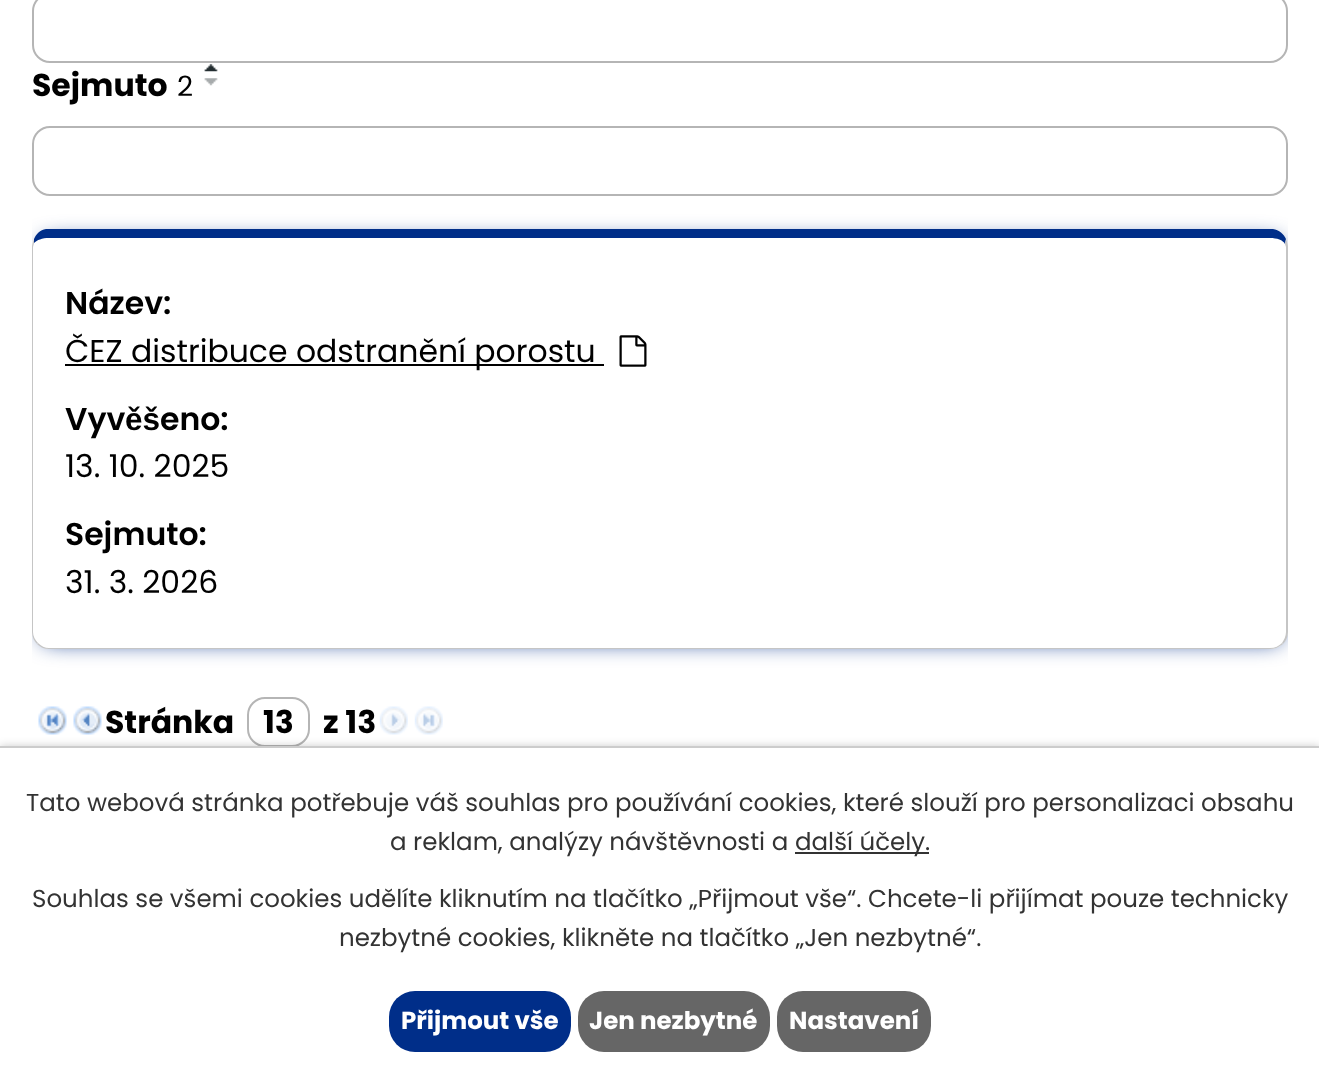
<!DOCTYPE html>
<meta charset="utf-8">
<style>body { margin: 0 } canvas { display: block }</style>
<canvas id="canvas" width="1319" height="1085"></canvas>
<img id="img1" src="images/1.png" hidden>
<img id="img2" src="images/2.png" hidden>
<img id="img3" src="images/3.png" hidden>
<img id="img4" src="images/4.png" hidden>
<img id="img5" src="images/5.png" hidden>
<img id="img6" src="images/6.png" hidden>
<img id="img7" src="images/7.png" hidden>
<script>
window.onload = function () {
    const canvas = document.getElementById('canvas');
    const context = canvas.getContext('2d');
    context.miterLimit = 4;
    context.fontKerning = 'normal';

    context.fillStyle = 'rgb(255, 255, 255)';
    context.fillRect(0, 0, 1319, 1085);
    context.beginPath();
    context.roundRect(33, -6, 1254, 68, 17);
    context.strokeStyle = 'rgb(181, 181, 181)';
    context.lineWidth = 2;
    context.stroke();
    context.beginPath();
    context.roundRect(33, 127, 1254, 68, 17);
    context.stroke();
    context.drawImage(document.getElementById('img1'), 204, 64, 14, 8);
    context.drawImage(document.getElementById('img2'), 204, 78, 14, 8);
    context.save();
    context.beginPath();
    context.rect(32, 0, 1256, 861);
    context.clip();
    context.beginPath();
    context.moveTo(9, 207);
    context.lineTo(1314, 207);
    context.lineTo(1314, 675);
    context.lineTo(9, 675);
    context.closePath();
    context.moveTo(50, 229);
    context.lineTo(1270, 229);
    context.bezierCurveTo(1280, 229, 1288, 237, 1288, 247);
    context.lineTo(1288, 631);
    context.bezierCurveTo(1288, 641, 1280, 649, 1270, 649);
    context.lineTo(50, 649);
    context.bezierCurveTo(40, 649, 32, 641, 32, 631);
    context.lineTo(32, 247);
    context.bezierCurveTo(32, 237, 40, 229, 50, 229);
    context.closePath();
    context.clip('evenodd');
    context.fillStyle = 'rgb(0, 46, 137)';
    context.filter = 'blur(10.5px)';
    context.beginPath();
    context.roundRect(42, 240, 1239, 402, 9);
    context.fill();
    context.filter = 'none';
    context.restore();
    context.fillStyle = 'rgb(0, 46, 137)';
    context.beginPath();
    context.moveTo(49, 238);
    context.bezierCurveTo(42, 238, 37, 240, 34, 243);
    context.lineTo(34, 239);
    context.bezierCurveTo(36, 234, 40, 230, 46, 229);
    context.lineTo(1273, 229);
    context.bezierCurveTo(1279, 230, 1284, 234, 1286, 239);
    context.lineTo(1285, 244);
    context.bezierCurveTo(1283, 240, 1277, 238, 1270, 238);
    context.closePath();
    context.fill();
    context.fillStyle = 'rgb(197, 197, 197)';
    context.beginPath();
    context.moveTo(1288, 632);
    context.lineTo(1288, 247);
    context.bezierCurveTo(1288, 244, 1287, 241, 1286, 239);
    context.lineTo(1285, 244);
    context.lineTo(1286, 247);
    context.lineTo(1286, 632);
    context.bezierCurveTo(1286, 636, 1284, 640, 1282, 643);
    context.lineTo(1283, 644);
    context.bezierCurveTo(1286, 641, 1288, 637, 1288, 632);
    context.closePath();
    context.fill();
    context.beginPath();
    context.moveTo(1283, 644);
    context.bezierCurveTo(1279, 647, 1275, 649, 1270, 649);
    context.lineTo(49, 649);
    context.bezierCurveTo(44, 649, 40, 647, 37, 644);
    context.lineTo(38, 643);
    context.bezierCurveTo(41, 646, 45, 648, 49, 648);
    context.lineTo(1270, 648);
    context.bezierCurveTo(1275, 648, 1279, 646, 1282, 643);
    context.closePath();
    context.fill();
    context.beginPath();
    context.moveTo(37, 644);
    context.bezierCurveTo(34, 641, 32, 637, 32, 632);
    context.lineTo(32, 247);
    context.bezierCurveTo(32, 244, 33, 242, 34, 239);
    context.lineTo(34, 243);
    context.lineTo(33, 247);
    context.lineTo(33, 632);
    context.bezierCurveTo(33, 636, 35, 640, 38, 643);
    context.closePath();
    context.fill();
    context.fillStyle = 'rgb(0, 0, 0)';
    context.fillRect(65, 364, 539, 2);
    context.drawImage(document.getElementById('img3'), 619, 335, 28, 32);
    context.drawImage(document.getElementById('img4'), 38, 706, 29, 29);
    context.drawImage(document.getElementById('img5'), 73, 706, 29, 29);
    context.beginPath();
    context.roundRect(248, 698, 61, 48, 17);
    context.stroke();
    context.drawImage(document.getElementById('img6'), 379, 706, 29, 29);
    context.drawImage(document.getElementById('img7'), 414, 706, 29, 29);
    context.fillStyle = 'rgba(0, 0, 0, 0.2)';
    context.filter = 'blur(4.5px)';
    context.beginPath();
    context.rect(0, 746, 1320, 339);
    context.fill();
    context.filter = 'none';
    context.fillStyle = 'rgb(255, 255, 255)';
    context.fillRect(0, 748, 1319, 337);
    context.fillStyle = 'rgb(204, 204, 204)';
    context.fillRect(0, 746, 1319, 2);
    context.fillStyle = 'rgb(51, 51, 51)';
    context.fillRect(795, 852, 134, 2);
    context.fillStyle = 'rgb(0, 46, 137)';
    context.beginPath();
    context.roundRect(389, 991, 182, 61, 26);
    context.fill();
    context.fillStyle = 'rgb(102, 102, 102)';
    context.beginPath();
    context.roundRect(578, 991, 192, 61, 26);
    context.fill();
    context.beginPath();
    context.roundRect(777, 991, 154, 61, 26);
    context.fill();
    context.font = 'bold 31.5px Poppins';
    context.fillStyle = 'rgb(0, 0, 0)';
    context.fillText('Sejmuto', 32, 96);
    context.font = '28px Poppins';
    context.fillText('2', 177, 96);
    context.font = '600 31.5px Poppins';
    context.fillText('Název:', 65, 314);
    context.font = '31.5px Poppins';
    context.fillText('ČEZ distribuce odstranění porostu', 65, 362);
    context.font = '600 31.5px Poppins';
    context.fillText('Vyv', 65, 430);
    context.font = 'bold 31.5px Liberation Sans';
    context.fillText('ěš', 125, 430);
    context.font = '600 31.5px Poppins';
    context.fillText('eno:', 160, 430);
    context.font = '31.5px Poppins';
    context.fillText('13. 10. 2025', 65, 477);
    context.font = '600 31.5px Poppins';
    context.fillText('Sejmuto:', 65, 545);
    context.font = '31.5px Poppins';
    context.fillText('31. 3. 2026', 65, 593);
    context.font = 'bold 31.5px Poppins';
    context.fillText('Stránka', 105, 733);
    context.fillText('13', 263, 733);
    context.fillText('z 13', 323, 733);
    context.font = '24.5px Poppins';
    context.fillStyle = 'rgb(51, 51, 51)';
    context.fillText('Tato webová stránka potřebuje váš souhlas pro používání cookies, které slouží pro personalizaci obsahu', 26, 811);
    context.fillText('a reklam, analýzy návštěvnosti a', 390, 850);
    context.fillText('další účely.', 795, 850);
    context.fillText('Souhlas se všemi cookies udělíte kliknutím na tlačítko „Přijmout vše“. Chcete-li přijímat pouze technicky', 32, 907);
    context.fillText('nezbytné cookies, klikněte na tlačítko „Jen nezbytné“.', 339, 946);
    context.font = 'bold 24.5px Poppins';
    context.fillStyle = 'rgb(255, 255, 255)';
    context.fillText('Přijmout vše', 401, 1029);
    context.fillText('Jen nezbytné', 589, 1029);
    context.fillText('Nastavení', 789, 1029);
};
</script>
